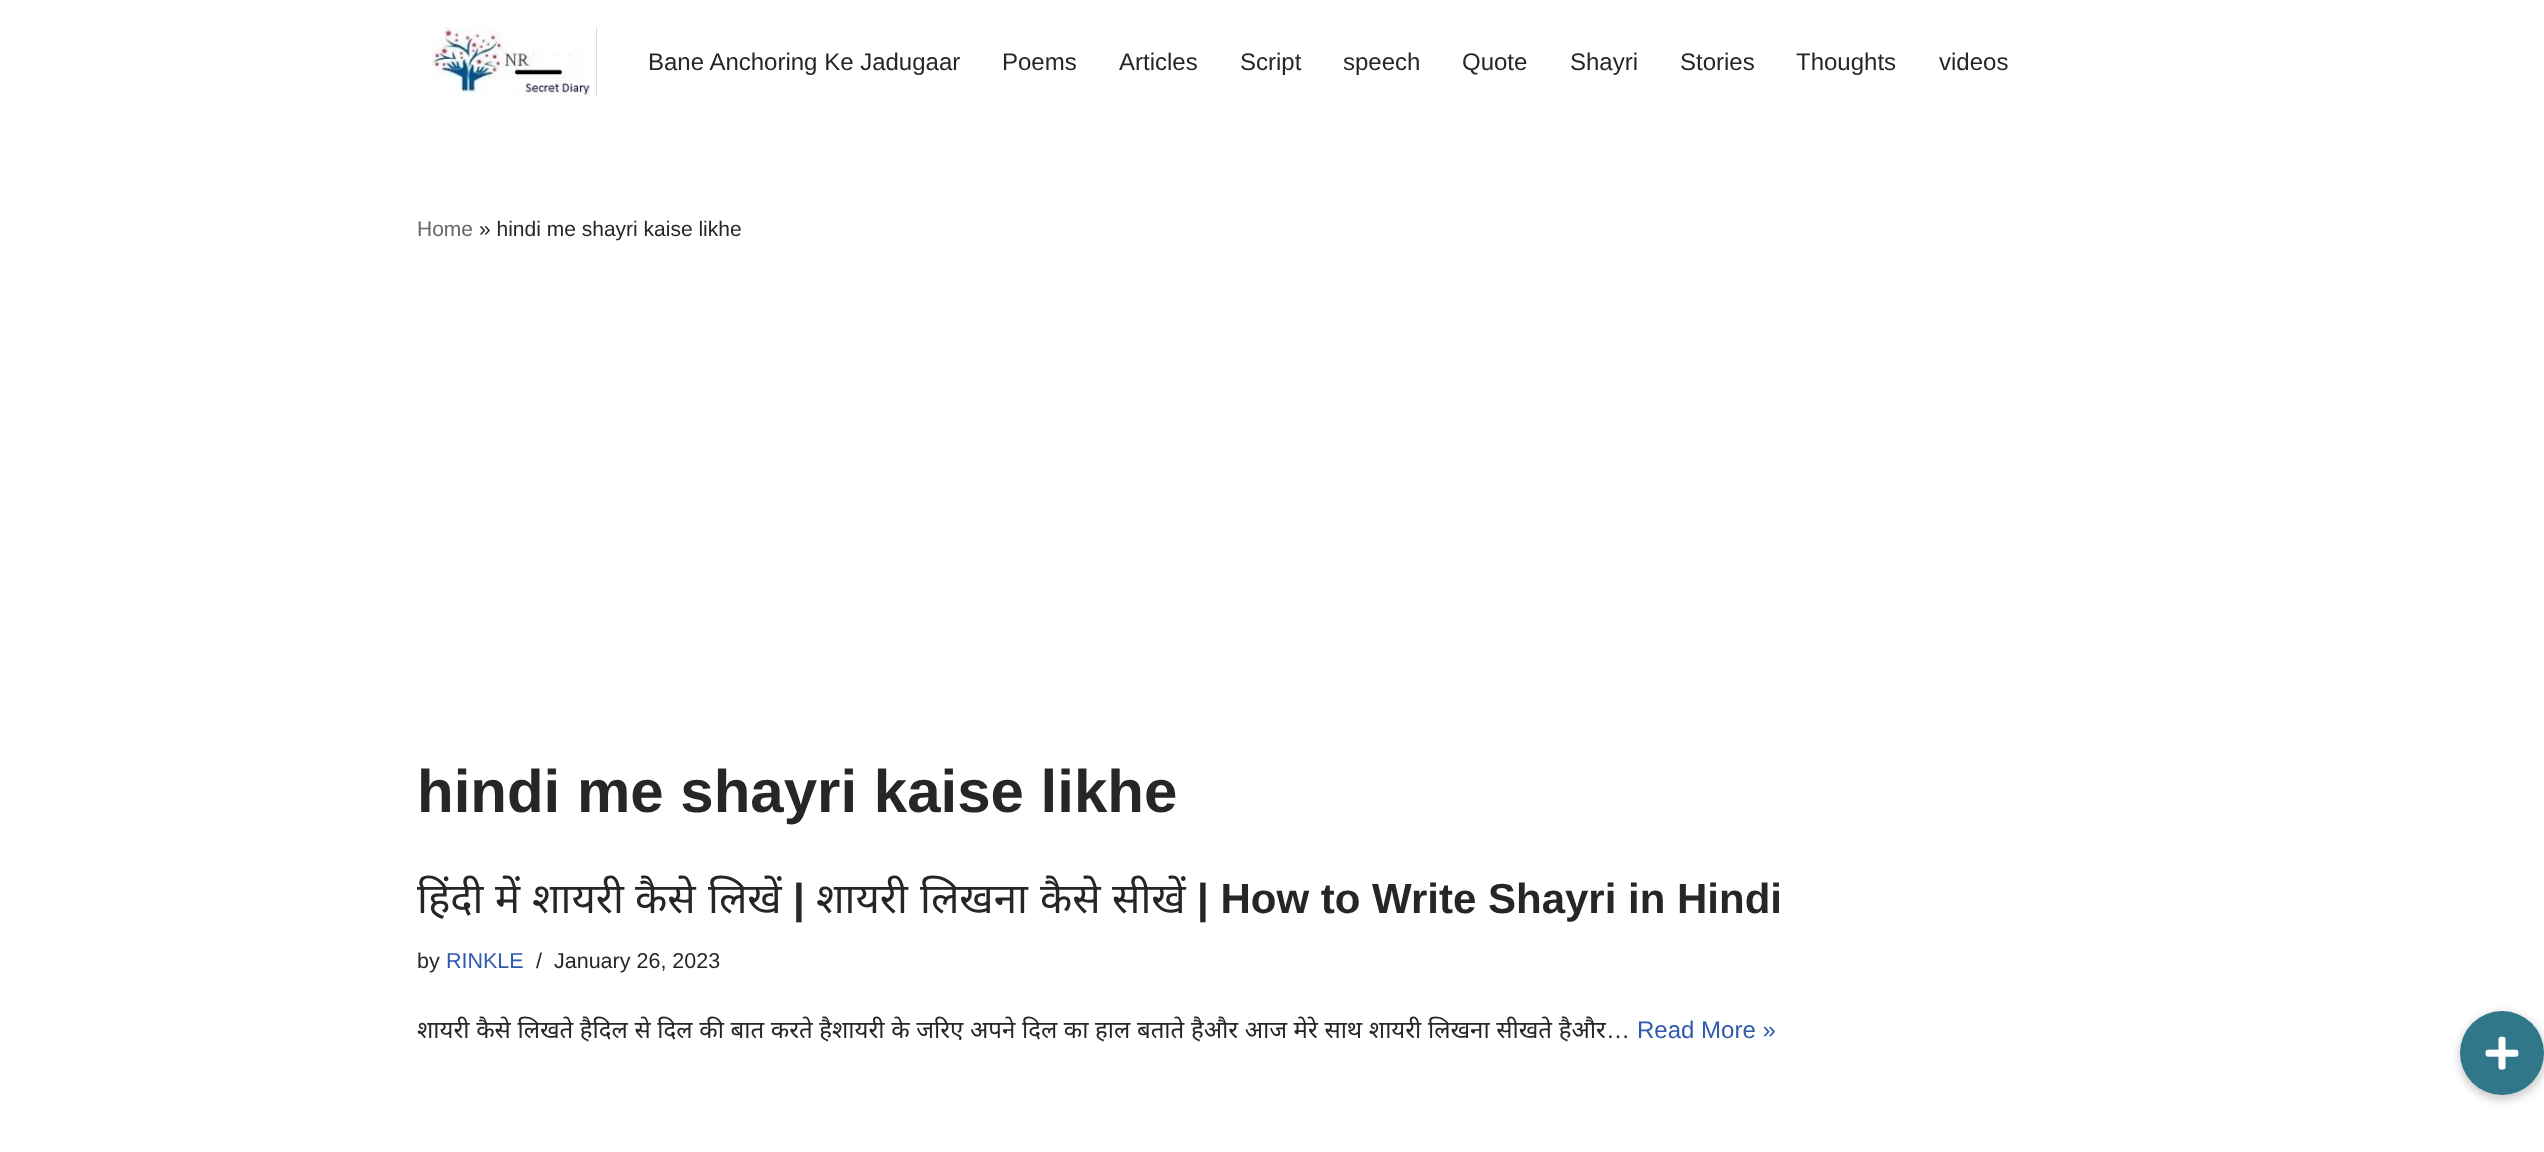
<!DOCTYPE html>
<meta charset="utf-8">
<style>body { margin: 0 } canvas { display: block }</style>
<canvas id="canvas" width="2544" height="1152"></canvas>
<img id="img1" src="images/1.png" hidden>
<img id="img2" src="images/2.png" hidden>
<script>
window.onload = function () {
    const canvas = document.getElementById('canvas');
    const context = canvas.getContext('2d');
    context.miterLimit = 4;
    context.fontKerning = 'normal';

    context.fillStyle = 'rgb(255, 255, 255)';
    context.fillRect(0, 0, 2544, 1152);
    context.drawImage(document.getElementById('img1'), 431, 27, 166, 69);
    context.fillStyle = 'rgba(0, 0, 0, 0.2)';
    context.filter = 'blur(4.5px)';
    context.beginPath();
    context.roundRect(2459, 1013, 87, 87, 43.5);
    context.fill();
    context.filter = 'none';
    context.fillStyle = 'rgb(47, 119, 137)';
    context.beginPath();
    context.arc(2502, 1053, 42, 0, 2 * Math.PI);
    context.fill();
    context.drawImage(document.getElementById('img2'), 2485, 1036, 34, 34);
    context.font = '24px Liberation Sans';
    context.fillStyle = 'rgb(39, 38, 38)';
    context.fillText('Bane Anchoring Ke Jadugaar', 648, 70);
    context.fillText('Poems', 1002, 70);
    context.fillText('Articles', 1119, 70);
    context.fillText('Script', 1240, 70);
    context.fillText('speech', 1343, 70);
    context.fillText('Quote', 1462, 70);
    context.fillText('Shayri', 1570, 70);
    context.fillText('Stories', 1680, 70);
    context.fillText('Thoughts', 1796, 70);
    context.fillText('videos', 1939, 70);
    context.font = '21px Liberation Sans';
    context.fillStyle = 'rgb(103, 103, 103)';
    context.fillText('Home', 417, 236);
    context.fillStyle = 'rgb(39, 38, 38)';
    context.fillText('» hindi me shayri kaise likhe', 479, 236);
    context.font = 'bold 60px Liberation Sans';
    context.fillText('hindi me shayri kaise likhe', 417, 812);
    context.font = '42px Noto Sans';
    context.fillText('हिंदी', 417, 913);
    context.fillText('में', 495, 913);
    context.fillText('शायरी', 532, 913);
    context.fillText('कैसे', 635, 913);
    context.fillText('लिखें', 708, 913);
    context.font = 'bold 42px Liberation Sans';
    context.fillText('|', 793, 913);
    context.font = '42px Noto Sans';
    context.fillText('शायरी', 816, 913);
    context.fillText('लिखना', 920, 913);
    context.fillText('कैसे', 1040, 913);
    context.fillText('सीखें', 1112, 913);
    context.font = 'bold 42px Liberation Sans';
    context.fillText('| How to Write Shayri in Hindi', 1197, 913);
    context.font = '21.5px Liberation Sans';
    context.fillText('by', 417, 968);
    context.fillStyle = 'rgb(47, 90, 174)';
    context.fillText('RINKLE', 446, 968);
    context.fillStyle = 'rgb(39, 38, 38)';
    context.fillText('/', 536, 968);
    context.fillText('January 26, 2023', 554, 968);
    context.wordSpacing = '0.4px';
    context.font = '24px Noto Sans';
    context.fillText('शायरी कैसे लिखते हैदिल से दिल की बात करते हैशायरी के जरिए अपने दिल का हाल बताते हैऔर आज मेरे साथ शायरी लिखना सीखते हैऔर', 417, 1038);
    context.wordSpacing = '0px';
    context.font = '24px Liberation Sans';
    context.fillText('…', 1606, 1038);
    context.fillStyle = 'rgb(47, 90, 174)';
    context.fillText('Read More »', 1637, 1038);
};
</script>
